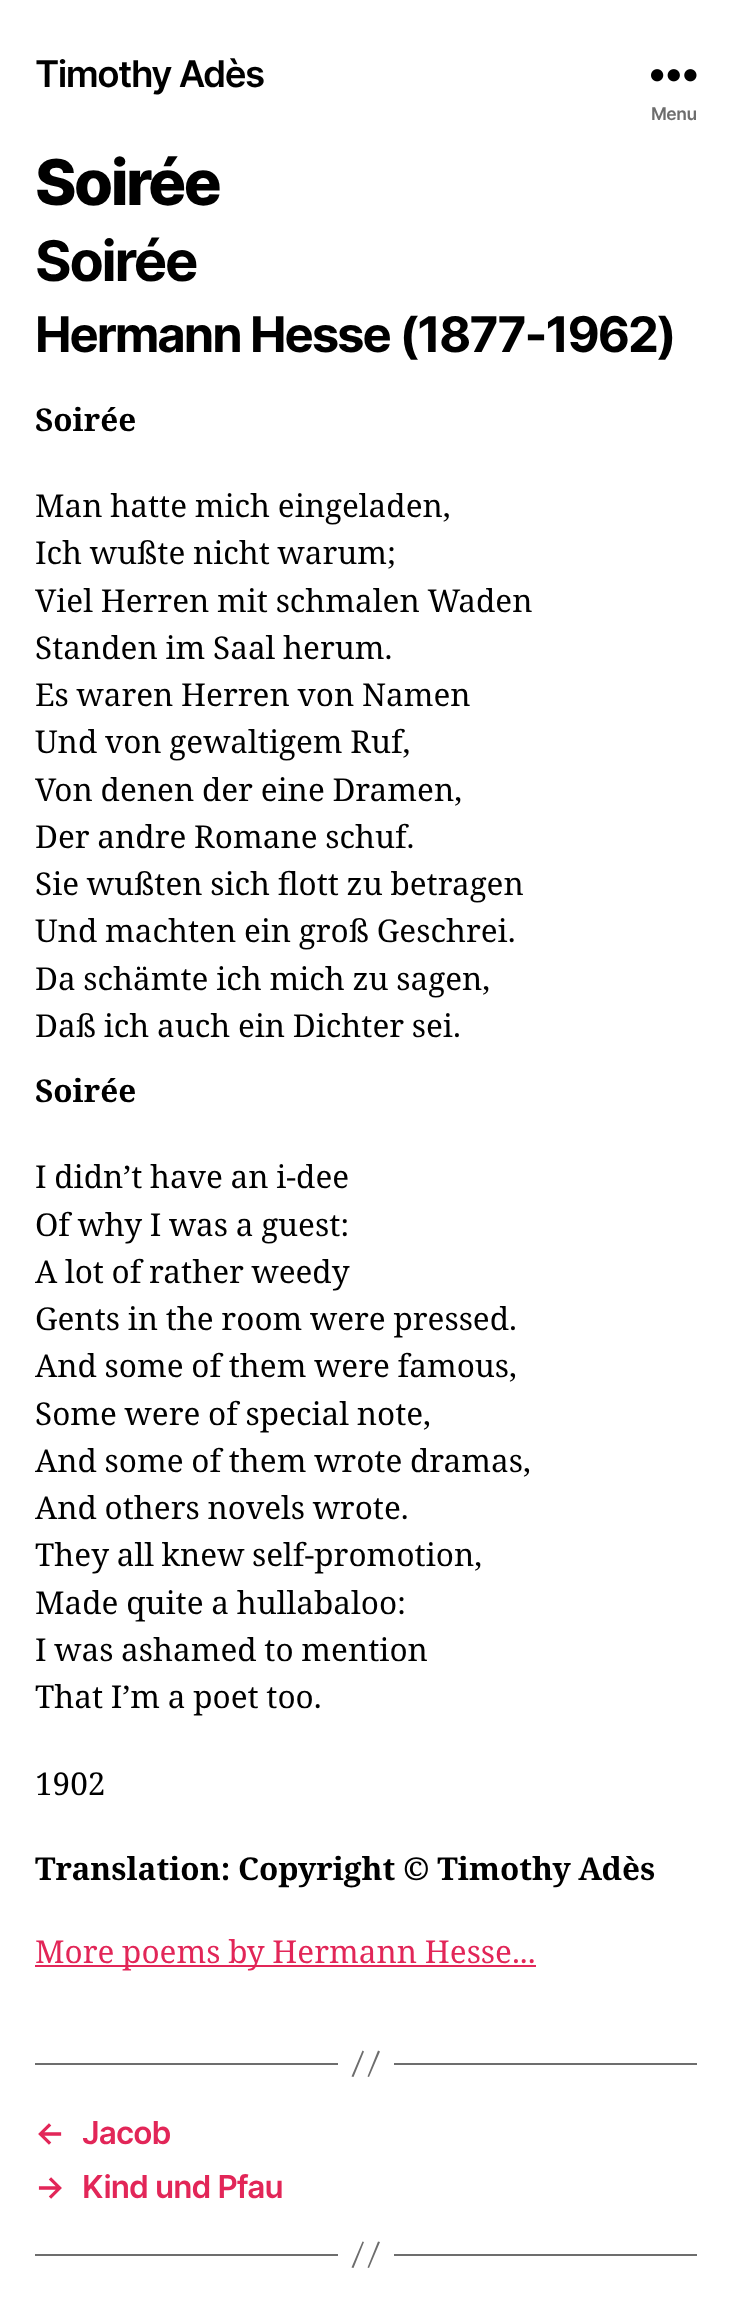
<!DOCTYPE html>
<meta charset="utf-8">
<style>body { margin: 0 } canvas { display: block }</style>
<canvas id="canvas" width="731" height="2314"></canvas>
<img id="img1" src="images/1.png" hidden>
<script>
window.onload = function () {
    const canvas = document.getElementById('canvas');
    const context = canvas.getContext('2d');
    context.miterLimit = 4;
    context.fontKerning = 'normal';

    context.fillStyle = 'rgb(255, 255, 255)';
    context.fillRect(0, 0, 731, 2314);
    context.drawImage(document.getElementById('img1'), 651, 69, 46, 13);
    context.fillStyle = 'rgb(226, 38, 88)';
    context.fillRect(35, 1965, 501, 2);
    context.fillStyle = 'rgb(109, 109, 109)';
    context.fillRect(394, 2063, 303, 2);
    context.fillRect(35, 2063, 303, 2);
    context.beginPath();
    context.moveTo(362.5, 2050.5);
    context.lineTo(364, 2051.5);
    context.lineTo(353.5, 2077);
    context.lineTo(351.5, 2076.5);
    context.closePath();
    context.moveTo(378, 2050.5);
    context.lineTo(380, 2051.5);
    context.lineTo(369, 2077);
    context.lineTo(367.5, 2076.5);
    context.closePath();
    context.fill();
    context.fillRect(394, 2254, 303, 2);
    context.fillRect(35, 2254, 303, 2);
    context.beginPath();
    context.moveTo(362.5, 2241.5);
    context.lineTo(364, 2242);
    context.lineTo(353.5, 2268);
    context.lineTo(351.5, 2267.5);
    context.closePath();
    context.moveTo(378, 2241.5);
    context.lineTo(380, 2242);
    context.lineTo(369, 2268);
    context.lineTo(367.5, 2267.5);
    context.closePath();
    context.fill();
    context.letterSpacing = '-1.5px';
    context.font = '600 36.75px Inter';
    context.fillStyle = 'rgb(0, 0, 0)';
    context.fillText('Timothy Adès', 35, 87);
    context.letterSpacing = '-0.5px';
    context.font = '600 17.5px Inter';
    context.fillStyle = 'rgb(109, 109, 109)';
    context.fillText('Menu', 651, 120);
    context.letterSpacing = '-2.5px';
    context.font = '800 63px Inter';
    context.fillStyle = 'rgb(0, 0, 0)';
    context.fillText('Soirée', 35, 205);
    context.letterSpacing = '-2.25px';
    context.font = 'bold 56px Inter';
    context.fillText('Soirée', 35, 281);
    context.letterSpacing = '-2.05px';
    context.font = 'bold 49px Inter';
    context.fillText('Hermann Hesse (1877-1962)', 35, 352);
    context.letterSpacing = '0px';
    context.font = 'bold 31.5px Noto Serif';
    context.fillText('Soirée', 35, 431);
    context.wordSpacing = '-0.5px';
    context.font = '31.5px Noto Serif';
    context.fillText('Man hatte mich eingeladen,', 35, 517);
    context.fillText('Ich wußte nicht warum;', 35, 564);
    context.fillText('Viel Herren mit schmalen Waden', 35, 612);
    context.fillText('Standen im Saal herum.', 35, 659);
    context.fillText('Es waren Herren von Namen', 35, 706);
    context.fillText('Und von gewaltigem Ruf,', 35, 753);
    context.fillText('Von denen der eine Dramen,', 35, 801);
    context.fillText('Der andre Romane schuf.', 35, 848);
    context.fillText('Sie wußten sich flott zu betragen', 35, 895);
    context.fillText('Und machten ein groß Geschrei.', 35, 942);
    context.fillText('Da schämte ich mich zu sagen,', 35, 990);
    context.fillText('Daß ich auch ein Dichter sei.', 35, 1037);
    context.wordSpacing = '0px';
    context.font = 'bold 31.5px Noto Serif';
    context.fillText('Soirée', 35, 1102);
    context.wordSpacing = '-0.5px';
    context.font = '31.5px Noto Serif';
    context.fillText('I didn’t have an i-dee', 35, 1188);
    context.fillText('Of why I was a guest:', 35, 1236);
    context.fillText('A lot of rather weedy', 35, 1283);
    context.fillText('Gents in the room were pressed.', 35, 1330);
    context.fillText('And some of them were famous,', 35, 1377);
    context.fillText('Some were of special note,', 35, 1425);
    context.fillText('And some of them wrote dramas,', 35, 1472);
    context.fillText('And others novels wrote.', 35, 1519);
    context.fillText('They all knew self-promotion,', 35, 1566);
    context.fillText('Made quite a hullabaloo:', 35, 1614);
    context.fillText('I was ashamed to mention', 35, 1661);
    context.fillText('That I’m a poet too.', 35, 1708);
    context.wordSpacing = '0px';
    context.fillText('1902', 35, 1795);
    context.wordSpacing = '-0.5px';
    context.font = 'bold 31.5px Noto Serif';
    context.fillText('Translation: Copyright © Timothy Adès', 35, 1880);
    context.font = '31.5px Noto Serif';
    context.fillStyle = 'rgb(226, 38, 88)';
    context.fillText('More poems by Hermann Hesse...', 35, 1963);
    context.letterSpacing = '-0.9px';
    context.wordSpacing = '0px';
    context.font = '600 31.5px Inter';
    context.fillText('←', 35, 2144);
    context.fillText('Jacob', 82, 2144);
    context.fillText('→', 35, 2198);
    context.fillText('Kind und Pfau', 82, 2198);
};
</script>
